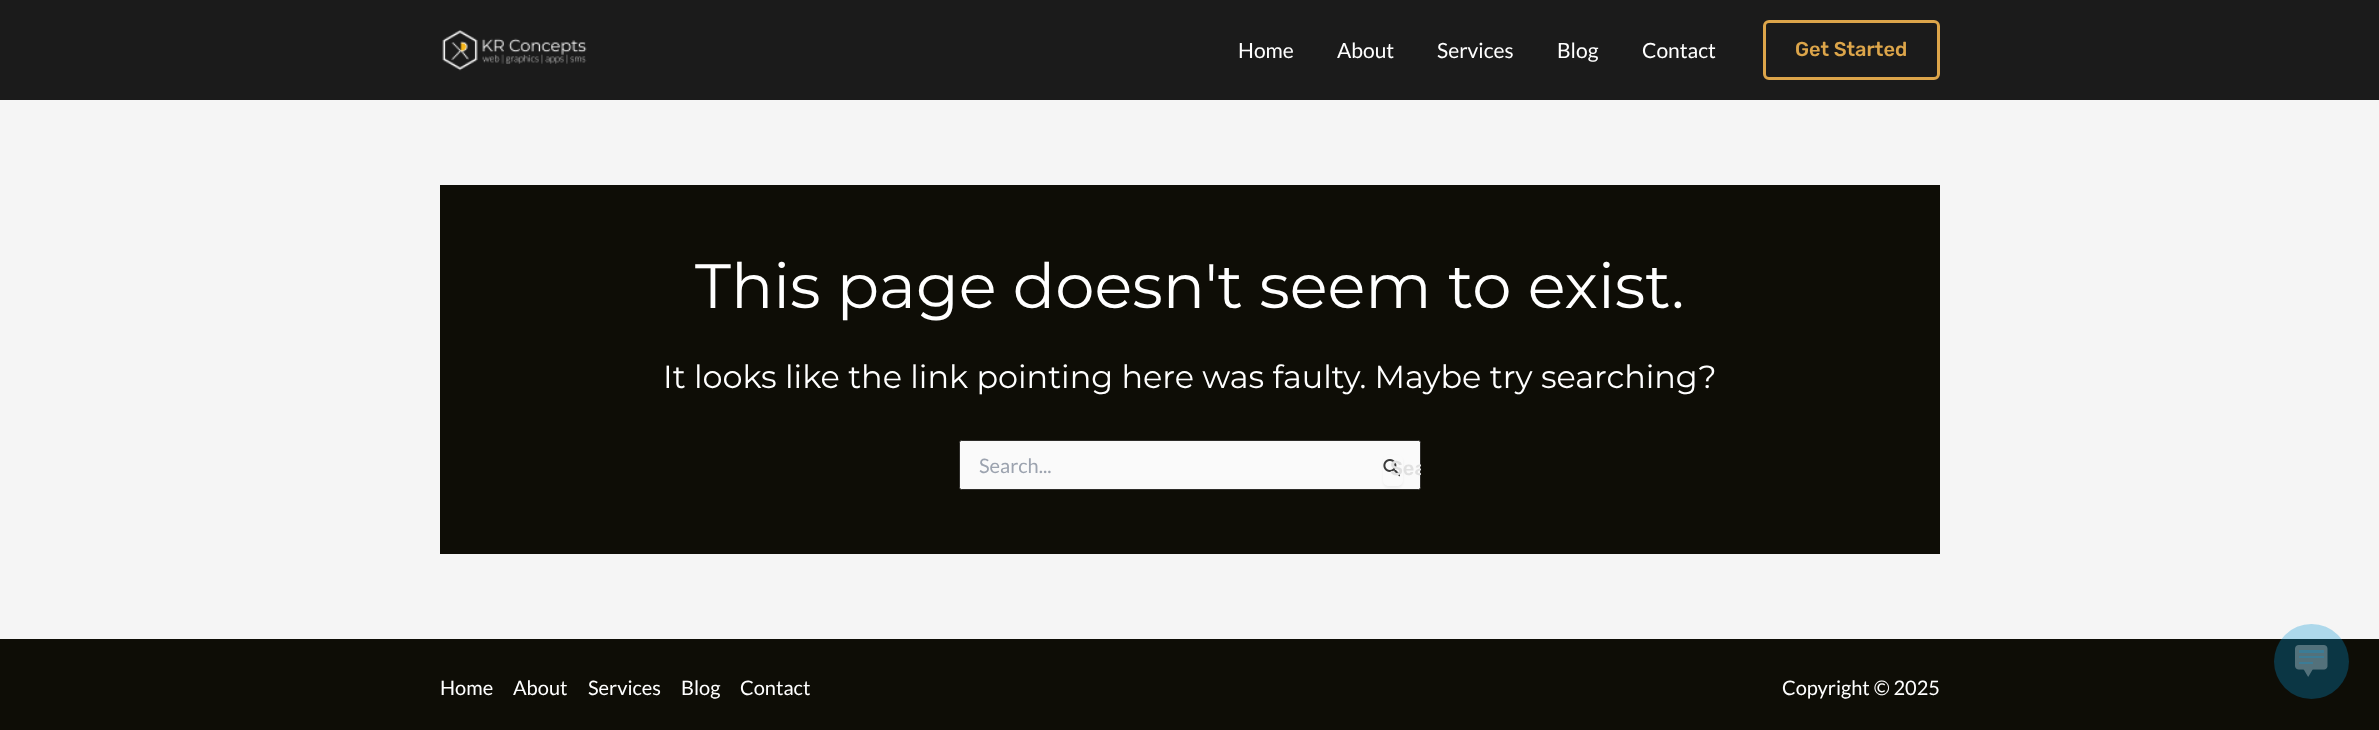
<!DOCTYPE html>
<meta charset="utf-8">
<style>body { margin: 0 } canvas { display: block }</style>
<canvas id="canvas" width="2379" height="730"></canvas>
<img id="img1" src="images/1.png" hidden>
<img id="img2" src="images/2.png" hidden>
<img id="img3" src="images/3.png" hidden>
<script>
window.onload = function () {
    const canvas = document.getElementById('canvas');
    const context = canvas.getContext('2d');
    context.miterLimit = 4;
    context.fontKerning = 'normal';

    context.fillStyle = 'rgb(245, 245, 245)';
    context.fillRect(0, 0, 2379, 730);
    context.fillStyle = 'rgb(27, 27, 27)';
    context.fillRect(0, 0, 2379, 100);
    context.drawImage(document.getElementById('img1'), 442, 30, 145, 41);
    context.beginPath();
    context.roundRect(1764.5, 21.5, 174, 57, 4.5);
    context.strokeStyle = 'rgb(220, 165, 74)';
    context.lineWidth = 3;
    context.stroke();
    context.fillStyle = 'rgb(14, 13, 6)';
    context.fillRect(440, 185, 1500, 369);
    context.fillStyle = 'rgb(250, 250, 250)';
    context.beginPath();
    context.roundRect(959.5, 440.5, 461, 49, 2);
    context.fill();
    context.strokeStyle = 'rgb(46, 45, 42)';
    context.lineWidth = 1;
    context.stroke();
    context.save();
    context.beginPath();
    context.moveTo(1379, 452);
    context.lineTo(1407, 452);
    context.lineTo(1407, 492);
    context.lineTo(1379, 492);
    context.closePath();
    context.moveTo(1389, 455);
    context.lineTo(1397, 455);
    context.bezierCurveTo(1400.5, 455, 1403, 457.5, 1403, 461);
    context.lineTo(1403, 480);
    context.bezierCurveTo(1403, 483.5, 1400.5, 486, 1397, 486);
    context.lineTo(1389, 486);
    context.bezierCurveTo(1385.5, 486, 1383, 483.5, 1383, 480);
    context.lineTo(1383, 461);
    context.bezierCurveTo(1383, 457.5, 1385.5, 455, 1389, 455);
    context.closePath();
    context.clip('evenodd');
    context.fillStyle = 'rgba(0, 0, 0, 0.05)';
    context.filter = 'blur(1px)';
    context.beginPath();
    context.roundRect(1383, 456, 20, 32, 6);
    context.fill();
    context.filter = 'none';
    context.restore();
    context.drawImage(document.getElementById('img2'), 1383, 459, 17, 18);
    context.fillStyle = 'rgb(14, 13, 6)';
    context.fillRect(0, 639, 2379, 91);
    context.fillStyle = 'rgba(5, 150, 212, 0.3)';
    context.beginPath();
    context.arc(2311.5, 661.5, 37.5, 0, 2 * Math.PI);
    context.fill();
    context.drawImage(document.getElementById('img3'), 2295, 645, 33, 32);
    context.font = '21px Lato';
    context.fillStyle = 'rgb(255, 255, 255)';
    context.fillText('Home', 1238, 58);
    context.fillText('About', 1337, 58);
    context.fillText('Services', 1437, 58);
    context.fillText('Blog', 1557, 58);
    context.fillText('Contact', 1642, 58);
    context.font = '500 20px Rubik';
    context.fillStyle = 'rgb(220, 165, 74)';
    context.fillText('Get Started', 1795, 56);
    context.font = '62.5px Montserrat';
    context.fillStyle = 'rgb(255, 255, 255)';
    context.fillText('This page doesn\'t seem to exist.', 695, 308);
    context.font = '31.9px Montserrat';
    context.fillText('It looks like the link pointing here was faulty. Maybe try searching?', 663, 388);
    context.font = '20px Lato';
    context.fillStyle = 'rgb(156, 163, 175)';
    context.fillText('Search...', 979, 473);
    context.save();
    context.beginPath();
    context.roundRect(1365, 440, 56, 58, 2.5);
    context.clip();
    context.font = '500 20px Rubik';
    context.fillStyle = 'rgb(224, 224, 224)';
    context.fillText('Sea', 1390, 475);
    context.restore();
    context.fillStyle = 'rgb(255, 255, 255)';
    context.fillText('Home', 440, 695);
    context.fillText('About', 513, 695);
    context.fillText('Services', 588, 695);
    context.fillText('Blog', 681, 695);
    context.fillText('Contact', 740, 695);
    context.fillText('Copyright © 2025', 1782, 695);
};
</script>
